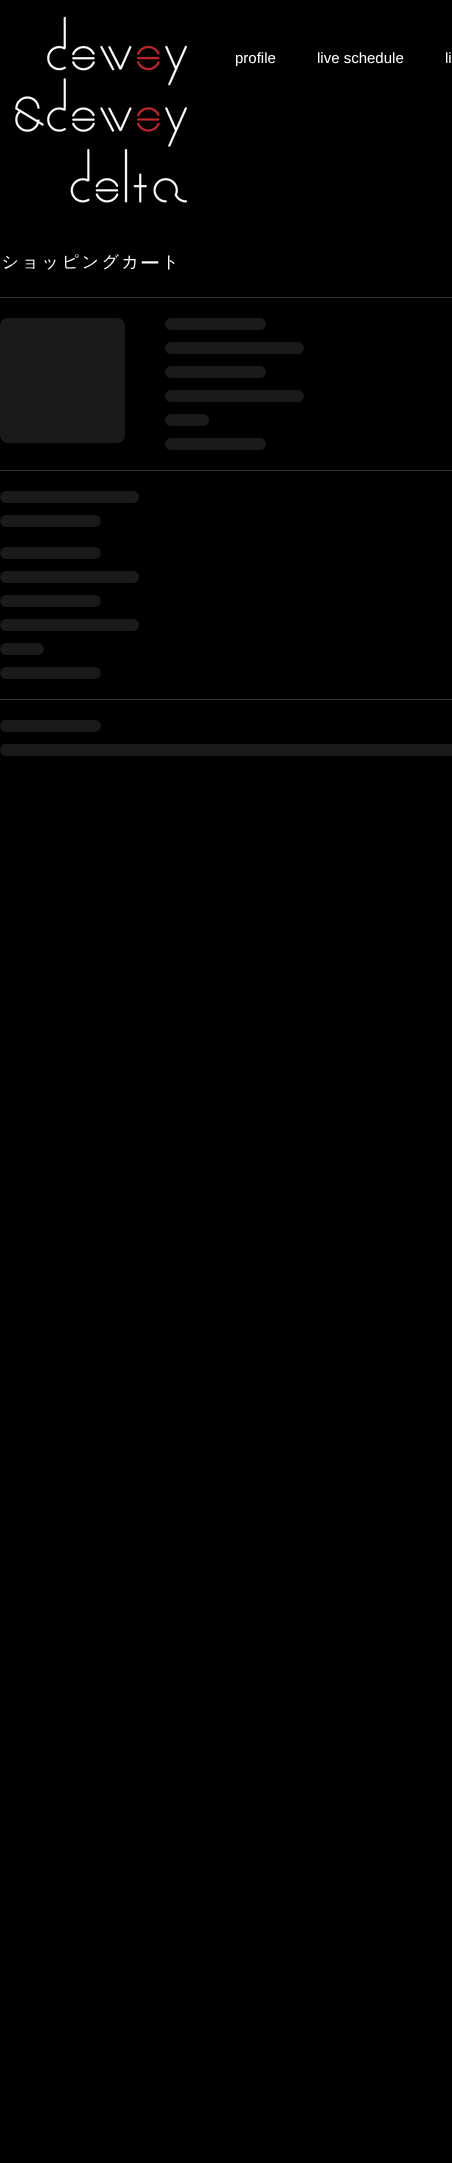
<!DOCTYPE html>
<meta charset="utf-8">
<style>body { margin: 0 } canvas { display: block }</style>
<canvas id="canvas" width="452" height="2163"></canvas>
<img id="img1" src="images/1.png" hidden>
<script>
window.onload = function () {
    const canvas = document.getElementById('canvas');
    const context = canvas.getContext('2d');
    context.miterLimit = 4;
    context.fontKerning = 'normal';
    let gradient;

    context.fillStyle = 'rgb(0, 0, 0)';
    context.fillRect(0, 0, 452, 2163);
    context.drawImage(document.getElementById('img1'), 15, 16, 172, 187);
    context.fillStyle = 'rgb(51, 51, 51)';
    context.fillRect(0, 297, 452, 1);
    gradient = context.createLinearGradient(0, 381, 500, 381);
    gradient.addColorStop(0.25, 'rgb(26, 26, 26)');
    gradient.addColorStop(0.37, 'rgb(51, 51, 51)');
    gradient.addColorStop(0.63, 'rgb(26, 26, 26)');
    context.fillStyle = gradient;
    context.beginPath();
    context.roundRect(0, 318, 125, 125, 8);
    context.fill();
    gradient = context.createLinearGradient(165, 324, 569, 324);
    gradient.addColorStop(0.25, 'rgb(26, 26, 26)');
    gradient.addColorStop(0.37, 'rgb(51, 51, 51)');
    gradient.addColorStop(0.63, 'rgb(26, 26, 26)');
    context.fillStyle = gradient;
    context.beginPath();
    context.roundRect(165, 318, 101, 12, 6);
    context.fill();
    gradient = context.createLinearGradient(165, 348, 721, 348);
    gradient.addColorStop(0.25, 'rgb(26, 26, 26)');
    gradient.addColorStop(0.37, 'rgb(51, 51, 51)');
    gradient.addColorStop(0.63, 'rgb(26, 26, 26)');
    context.fillStyle = gradient;
    context.beginPath();
    context.roundRect(165, 342, 139, 12, 6);
    context.fill();
    gradient = context.createLinearGradient(165, 372, 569, 372);
    gradient.addColorStop(0.25, 'rgb(26, 26, 26)');
    gradient.addColorStop(0.37, 'rgb(51, 51, 51)');
    gradient.addColorStop(0.63, 'rgb(26, 26, 26)');
    context.fillStyle = gradient;
    context.beginPath();
    context.roundRect(165, 366, 101, 12, 6);
    context.fill();
    gradient = context.createLinearGradient(165, 396, 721, 396);
    gradient.addColorStop(0.25, 'rgb(26, 26, 26)');
    gradient.addColorStop(0.37, 'rgb(51, 51, 51)');
    gradient.addColorStop(0.63, 'rgb(26, 26, 26)');
    context.fillStyle = gradient;
    context.beginPath();
    context.roundRect(165, 390, 139, 12, 6);
    context.fill();
    gradient = context.createLinearGradient(165, 420, 341, 420);
    gradient.addColorStop(0.25, 'rgb(26, 26, 26)');
    gradient.addColorStop(0.37, 'rgb(51, 51, 51)');
    gradient.addColorStop(0.63, 'rgb(26, 26, 26)');
    context.fillStyle = gradient;
    context.beginPath();
    context.roundRect(165, 414, 44, 12, 6);
    context.fill();
    gradient = context.createLinearGradient(165, 444, 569, 444);
    gradient.addColorStop(0.25, 'rgb(26, 26, 26)');
    gradient.addColorStop(0.37, 'rgb(51, 51, 51)');
    gradient.addColorStop(0.63, 'rgb(26, 26, 26)');
    context.fillStyle = gradient;
    context.beginPath();
    context.roundRect(165, 438, 101, 12, 6);
    context.fill();
    context.fillStyle = 'rgb(51, 51, 51)';
    context.fillRect(0, 470, 452, 1);
    gradient = context.createLinearGradient(0, 497, 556, 497);
    gradient.addColorStop(0.25, 'rgb(26, 26, 26)');
    gradient.addColorStop(0.37, 'rgb(51, 51, 51)');
    gradient.addColorStop(0.63, 'rgb(26, 26, 26)');
    context.fillStyle = gradient;
    context.beginPath();
    context.roundRect(0, 491, 139, 12, 6);
    context.fill();
    gradient = context.createLinearGradient(0, 521, 404, 521);
    gradient.addColorStop(0.25, 'rgb(26, 26, 26)');
    gradient.addColorStop(0.37, 'rgb(51, 51, 51)');
    gradient.addColorStop(0.63, 'rgb(26, 26, 26)');
    context.fillStyle = gradient;
    context.beginPath();
    context.roundRect(0, 515, 101, 12, 6);
    context.fill();
    gradient = context.createLinearGradient(0, 553, 404, 553);
    gradient.addColorStop(0.25, 'rgb(26, 26, 26)');
    gradient.addColorStop(0.37, 'rgb(51, 51, 51)');
    gradient.addColorStop(0.63, 'rgb(26, 26, 26)');
    context.fillStyle = gradient;
    context.beginPath();
    context.roundRect(0, 547, 101, 12, 6);
    context.fill();
    gradient = context.createLinearGradient(0, 577, 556, 577);
    gradient.addColorStop(0.25, 'rgb(26, 26, 26)');
    gradient.addColorStop(0.37, 'rgb(51, 51, 51)');
    gradient.addColorStop(0.63, 'rgb(26, 26, 26)');
    context.fillStyle = gradient;
    context.beginPath();
    context.roundRect(0, 571, 139, 12, 6);
    context.fill();
    gradient = context.createLinearGradient(0, 601, 404, 601);
    gradient.addColorStop(0.25, 'rgb(26, 26, 26)');
    gradient.addColorStop(0.37, 'rgb(51, 51, 51)');
    gradient.addColorStop(0.63, 'rgb(26, 26, 26)');
    context.fillStyle = gradient;
    context.beginPath();
    context.roundRect(0, 595, 101, 12, 6);
    context.fill();
    gradient = context.createLinearGradient(0, 625, 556, 625);
    gradient.addColorStop(0.25, 'rgb(26, 26, 26)');
    gradient.addColorStop(0.37, 'rgb(51, 51, 51)');
    gradient.addColorStop(0.63, 'rgb(26, 26, 26)');
    context.fillStyle = gradient;
    context.beginPath();
    context.roundRect(0, 619, 139, 12, 6);
    context.fill();
    gradient = context.createLinearGradient(0, 649, 176, 649);
    gradient.addColorStop(0.25, 'rgb(26, 26, 26)');
    gradient.addColorStop(0.37, 'rgb(51, 51, 51)');
    gradient.addColorStop(0.63, 'rgb(26, 26, 26)');
    context.fillStyle = gradient;
    context.beginPath();
    context.roundRect(0, 643, 44, 12, 6);
    context.fill();
    gradient = context.createLinearGradient(0, 673, 404, 673);
    gradient.addColorStop(0.25, 'rgb(26, 26, 26)');
    gradient.addColorStop(0.37, 'rgb(51, 51, 51)');
    gradient.addColorStop(0.63, 'rgb(26, 26, 26)');
    context.fillStyle = gradient;
    context.beginPath();
    context.roundRect(0, 667, 101, 12, 6);
    context.fill();
    context.fillStyle = 'rgb(51, 51, 51)';
    context.fillRect(0, 699, 452, 1);
    gradient = context.createLinearGradient(0, 726, 404, 726);
    gradient.addColorStop(0.25, 'rgb(26, 26, 26)');
    gradient.addColorStop(0.37, 'rgb(51, 51, 51)');
    gradient.addColorStop(0.63, 'rgb(26, 26, 26)');
    context.fillStyle = gradient;
    context.beginPath();
    context.roundRect(0, 720, 101, 12, 6);
    context.fill();
    gradient = context.createLinearGradient(0, 750, 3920, 750);
    gradient.addColorStop(0.25, 'rgb(26, 26, 26)');
    gradient.addColorStop(0.37, 'rgb(51, 51, 51)');
    gradient.addColorStop(0.63, 'rgb(26, 26, 26)');
    context.fillStyle = gradient;
    context.beginPath();
    context.roundRect(0, 744, 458, 12, 6);
    context.fill();
    context.font = '15px Liberation Sans';
    context.fillStyle = 'rgb(255, 255, 255)';
    context.fillText('profile', 235, 63);
    context.fillText('live schedule', 317, 63);
    context.fillText('li', 445, 63);
    context.font = '20px Dotum';
    context.fillText('ショッピングカ', 0, 270);
    context.font = '500 20px WenQuanYi Zen Hei';
    context.fillText('ー', 140, 270);
    context.font = '20px Dotum';
    context.fillText('ト', 160, 270);
};
</script>
